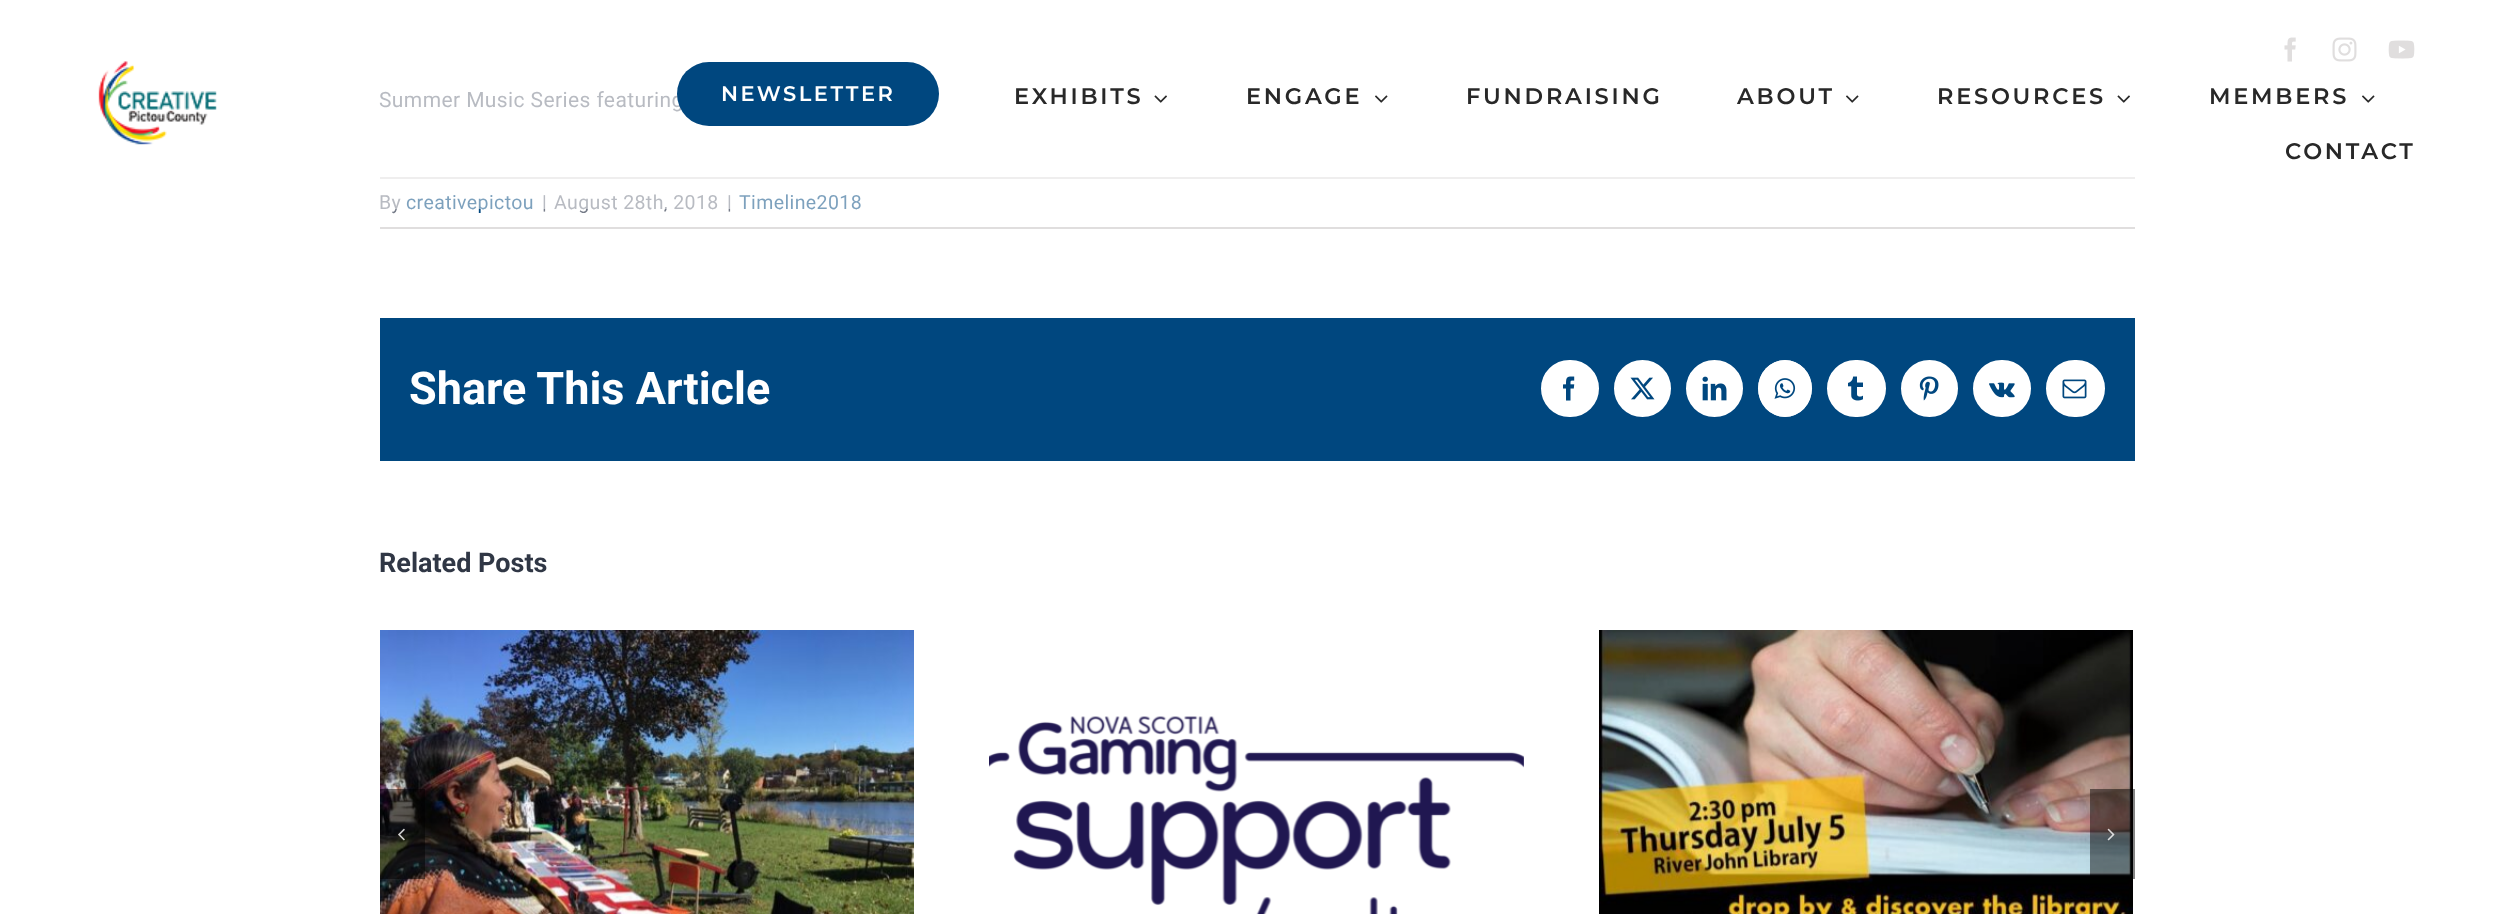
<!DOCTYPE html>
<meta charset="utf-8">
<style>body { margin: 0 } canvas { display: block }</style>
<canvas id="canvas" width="2512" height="914"></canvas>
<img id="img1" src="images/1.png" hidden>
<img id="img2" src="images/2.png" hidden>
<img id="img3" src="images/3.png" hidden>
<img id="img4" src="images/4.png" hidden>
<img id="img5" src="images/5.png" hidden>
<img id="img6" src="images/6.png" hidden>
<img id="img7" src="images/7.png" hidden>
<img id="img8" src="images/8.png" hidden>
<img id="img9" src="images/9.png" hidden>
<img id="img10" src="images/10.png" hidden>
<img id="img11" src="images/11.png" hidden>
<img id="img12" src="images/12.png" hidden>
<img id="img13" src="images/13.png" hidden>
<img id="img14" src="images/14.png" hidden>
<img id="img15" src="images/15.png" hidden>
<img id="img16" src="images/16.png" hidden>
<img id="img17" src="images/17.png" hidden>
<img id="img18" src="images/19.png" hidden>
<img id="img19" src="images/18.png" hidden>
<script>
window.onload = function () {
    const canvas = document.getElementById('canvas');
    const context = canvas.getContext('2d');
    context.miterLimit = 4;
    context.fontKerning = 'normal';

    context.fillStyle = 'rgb(255, 255, 255)';
    context.fillRect(0, 0, 2512, 914);
    context.fillStyle = 'rgb(224, 222, 222)';
    context.fillRect(380, 177, 1755, 2);
    context.fillRect(380, 227, 1755, 2);
    context.fillStyle = 'rgb(0, 71, 127)';
    context.fillRect(380, 318, 1755, 143);
    context.fillStyle = 'rgb(255, 255, 255)';
    context.beginPath();
    context.roundRect(1542, 361, 56, 55, 27.5);
    context.fill();
    context.strokeStyle = 'rgb(255, 255, 255)';
    context.lineWidth = 2;
    context.stroke();
    context.drawImage(document.getElementById('img1'), 1563, 376, 12, 25);
    context.beginPath();
    context.arc(1642.5, 388.5, 27.5, 0, 2 * Math.PI);
    context.fill();
    context.stroke();
    context.drawImage(document.getElementById('img2'), 1630, 377, 25, 23);
    context.beginPath();
    context.arc(1714.5, 388.5, 27.5, 0, 2 * Math.PI);
    context.fill();
    context.stroke();
    context.drawImage(document.getElementById('img3'), 1702, 376, 25, 25);
    context.beginPath();
    context.ellipse(1785, 388.5, 27, 28.5, 0, 0, 2 * Math.PI);
    context.fill();
    context.beginPath();
    context.moveTo(1785, 361);
    context.bezierCurveTo(1799.5, 361, 1811, 373, 1811, 388.5);
    context.bezierCurveTo(1811, 404, 1799.5, 416, 1785, 416);
    context.bezierCurveTo(1770.5, 416, 1759, 404, 1759, 388.5);
    context.bezierCurveTo(1759, 373, 1770.5, 361, 1785, 361);
    context.closePath();
    context.lineWidth = 1.5;
    context.stroke();
    context.drawImage(document.getElementById('img4'), 1774, 378, 22, 21);
    context.beginPath();
    context.roundRect(1828, 361, 57, 55, 27.5);
    context.fill();
    context.lineWidth = 2;
    context.stroke();
    context.drawImage(document.getElementById('img5'), 1848, 376, 15, 25);
    context.beginPath();
    context.arc(1929.5, 388.5, 27.5, 0, 2 * Math.PI);
    context.fill();
    context.stroke();
    context.drawImage(document.getElementById('img6'), 1919, 376, 20, 25);
    context.beginPath();
    context.roundRect(1974, 361, 56, 55, 27.5);
    context.fill();
    context.stroke();
    context.drawImage(document.getElementById('img7'), 1989, 382, 26, 16);
    context.beginPath();
    context.roundRect(2047, 361, 57, 55, 27.5);
    context.fill();
    context.stroke();
    context.drawImage(document.getElementById('img8'), 2062, 379, 25, 20);
    context.drawImage(document.getElementById('img9'), 380, 630, 534, 284);
    context.drawImage(document.getElementById('img10'), 989, 716, 535, 198);
    context.drawImage(document.getElementById('img11'), 1599, 630, 534, 284);
    context.fillStyle = 'rgba(0, 0, 0, 0.48)';
    context.fillRect(380, 789, 45, 90);
    context.drawImage(document.getElementById('img12'), 398, 828, 7, 13);
    context.fillRect(2090, 789, 45, 90);
    context.drawImage(document.getElementById('img13'), 2107, 828, 8, 13);
    context.drawImage(document.getElementById('img14'), 98, 61, 119, 84);
    context.drawImage(document.getElementById('img15'), 2284, 37, 12, 25);
    context.drawImage(document.getElementById('img16'), 2332, 37, 25, 25);
    context.drawImage(document.getElementById('img17'), 2388, 40, 27, 19);
    context.drawImage(document.getElementById('img18'), 2362, 95, 13, 8);
    context.letterSpacing = '0.4px';
    context.font = '21px Roboto';
    context.fillStyle = 'rgb(116, 122, 135)';
    context.fillText('Summer Music Series featuring', 379, 107);
    context.font = '19.5px Roboto';
    context.fillText('By', 379, 209);
    context.fillStyle = 'rgb(0, 71, 127)';
    context.fillText('creativepictou', 406, 209);
    context.fillStyle = 'rgb(116, 122, 135)';
    context.fillText('|', 542, 209);
    context.fillText('August 28th, 2018', 554, 209);
    context.fillText('|', 727, 209);
    context.fillStyle = 'rgb(0, 71, 127)';
    context.fillText('Timeline2018', 739, 209);
    context.letterSpacing = '0px';
    context.font = 'bold 45px Roboto';
    context.fillStyle = 'rgb(255, 255, 255)';
    context.fillText('Share This Article', 409, 404);
    context.font = 'bold 27px Roboto';
    context.fillStyle = 'rgb(48, 55, 69)';
    context.fillText('Related Posts', 379, 572);
    context.fillStyle = 'rgba(255, 255, 255, 0.49)';
    context.fillRect(379, 91, 1756, 118);
    context.fillStyle = 'rgb(0, 71, 127)';
    context.beginPath();
    context.roundRect(677, 62, 262, 64, 32);
    context.fill();
    context.letterSpacing = '2.5px';
    context.font = '100 21px Montserrat';
    context.fillStyle = 'rgb(255, 255, 255)';
    context.fillText('NEWSLETTER', 721, 101);
    context.letterSpacing = '2.75px';
    context.font = '100 22.5px Montserrat';
    context.fillStyle = 'rgb(40, 40, 40)';
    context.fillText('EXHIBITS', 1014, 104);
    context.drawImage(document.getElementById('img19'), 1154, 95, 13, 8);
    context.fillText('ENGAGE', 1246, 104);
    context.drawImage(document.getElementById('img18'), 1375, 95, 13, 8);
    context.fillText('FUNDRAISING', 1466, 104);
    context.fillText('ABOUT', 1737, 104);
    context.drawImage(document.getElementById('img18'), 1846, 95, 13, 8);
    context.fillText('RESOURCES', 1937, 104);
    context.drawImage(document.getElementById('img19'), 2117, 95, 13, 8);
    context.fillText('MEMBERS', 2209, 104);
    context.fillText('CONTACT', 2285, 159);
};
</script>
